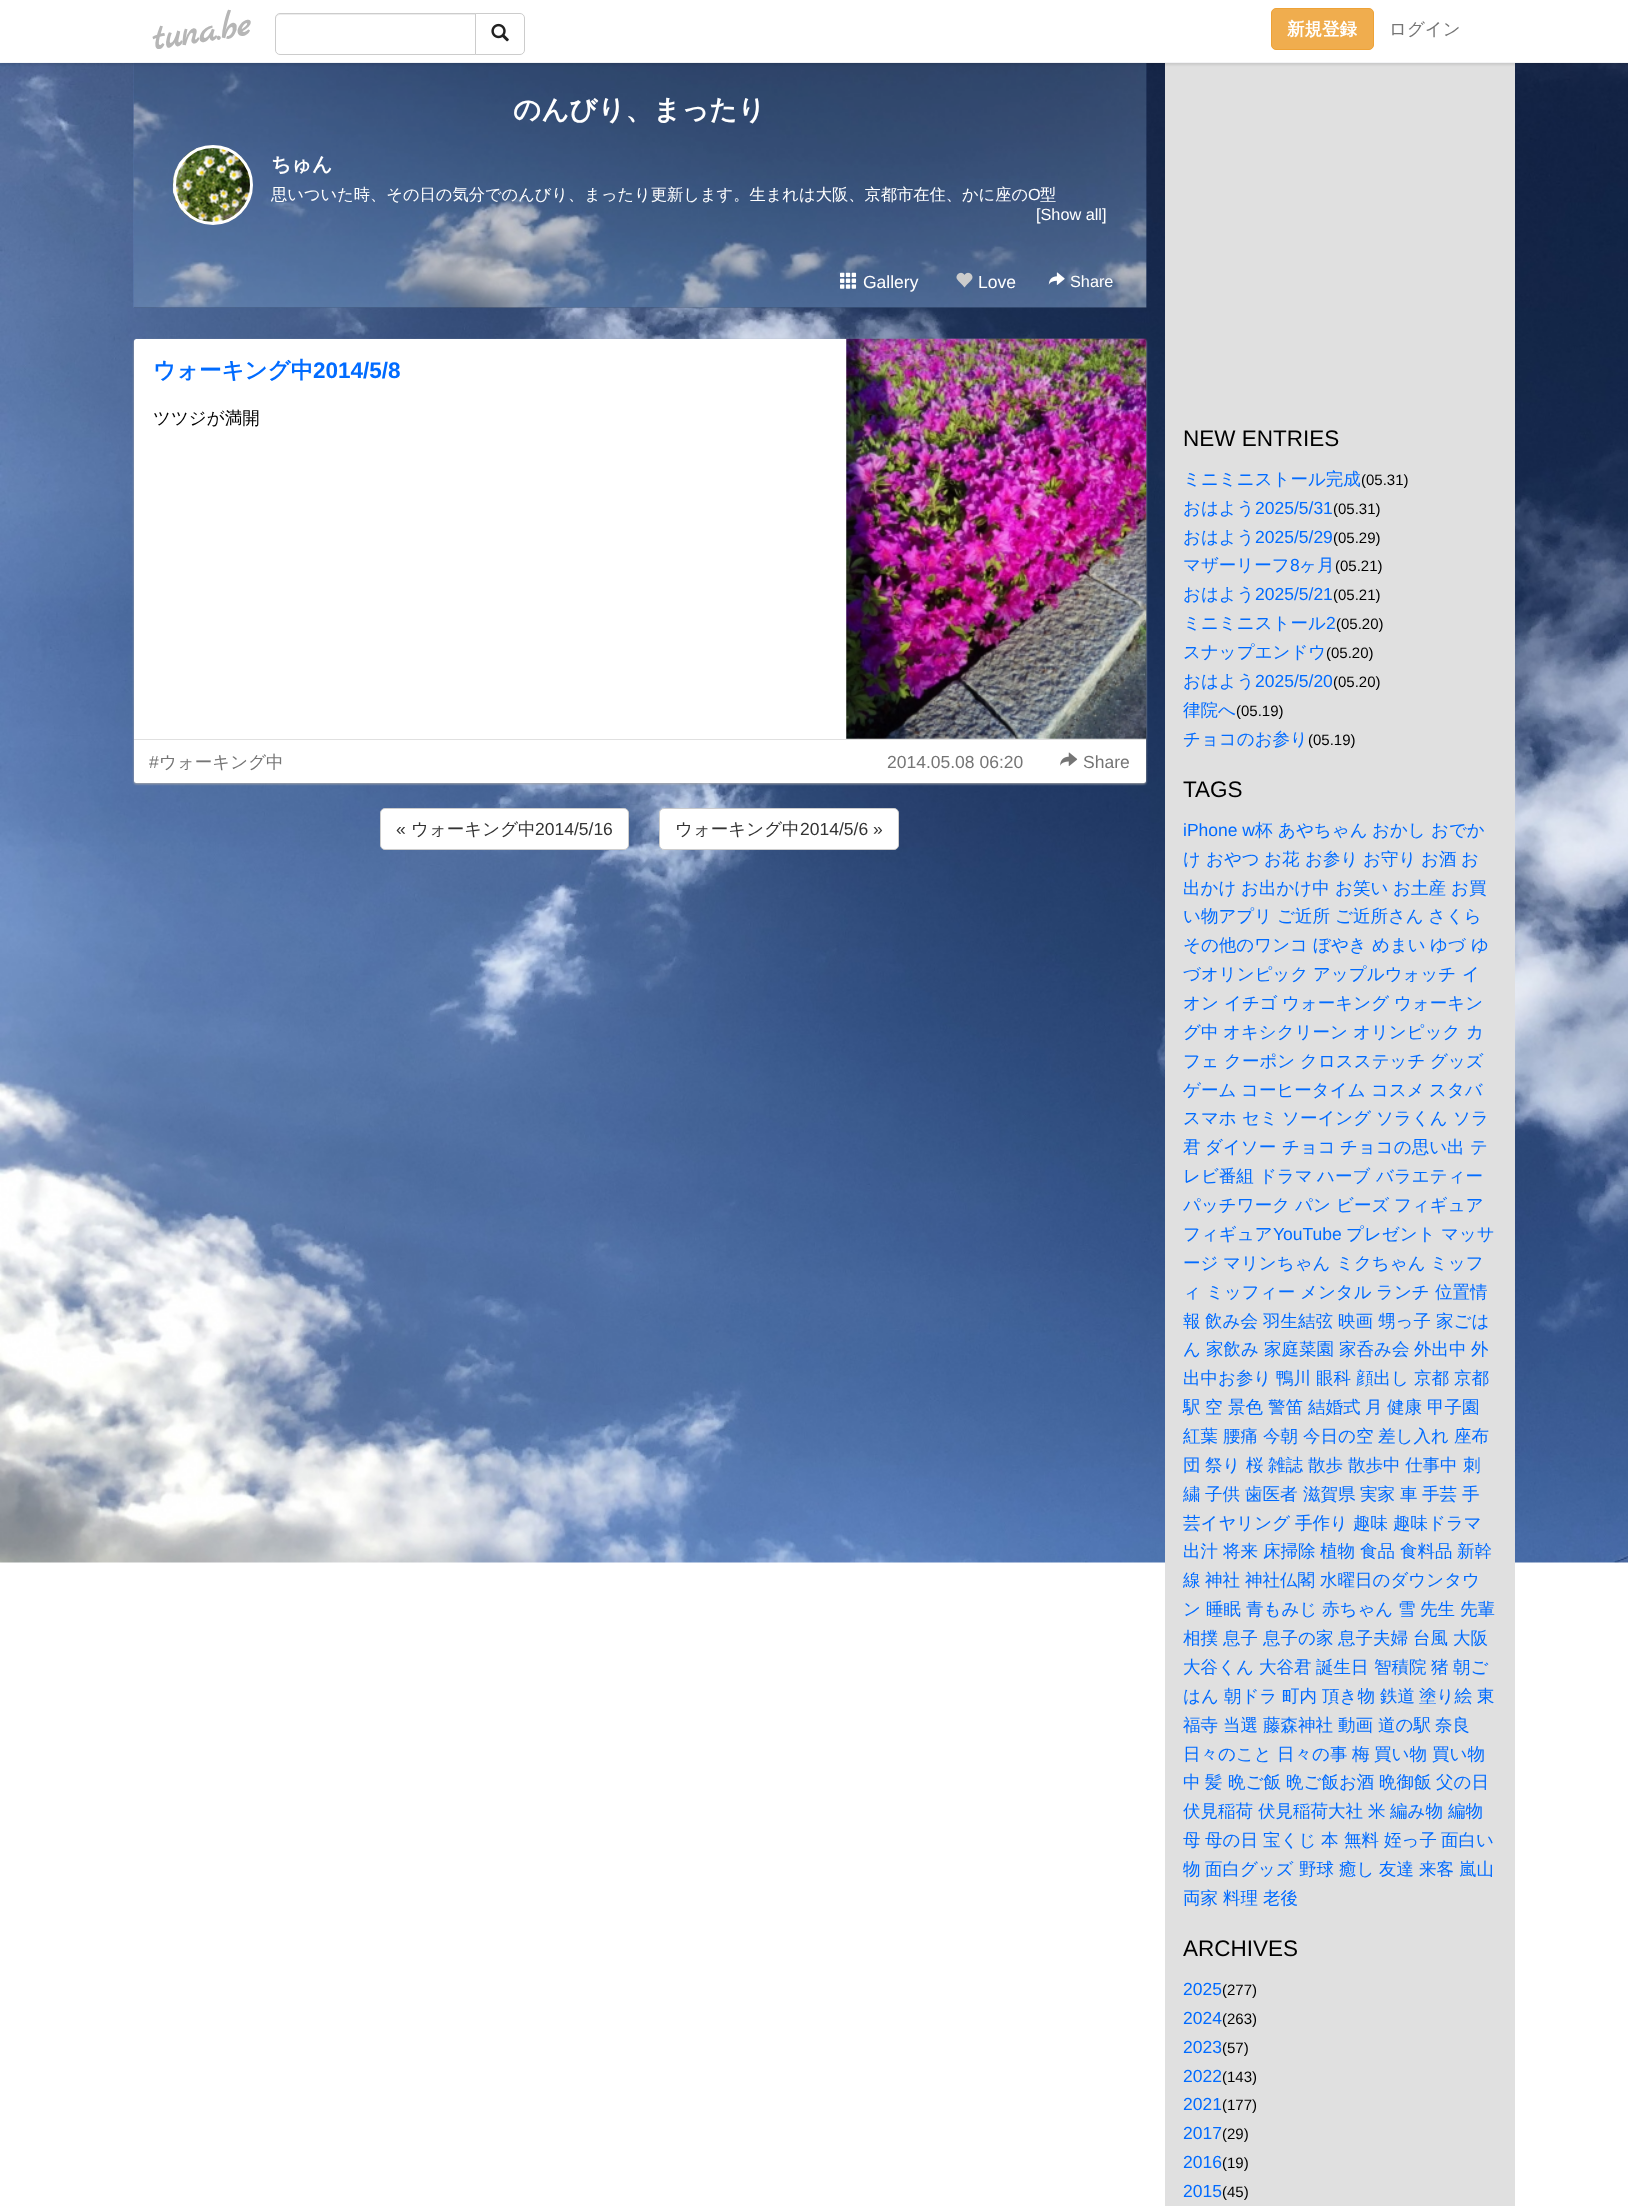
<!DOCTYPE html>
<meta charset="utf-8">
<style>body { margin: 0 } canvas { display: block }</style>
<canvas id="canvas" width="1628" height="2206"></canvas>
<img id="img1" src="images/1.png" hidden>
<img id="img2" src="images/3.png" hidden>
<img id="img3" src="images/2.png" hidden>
<img id="img4" src="images/4.png" hidden>
<img id="img5" src="images/5.png" hidden>
<img id="img6" src="images/6.png" hidden>
<img id="img7" src="images/7.png" hidden>
<img id="img8" src="images/8.png" hidden>
<img id="img9" src="images/9.png" hidden>
<script>
window.onload = function () {
    const canvas = document.getElementById('canvas');
    const context = canvas.getContext('2d');
    context.miterLimit = 4;
    context.fontKerning = 'normal';

    context.fillStyle = 'rgb(255, 255, 255)';
    context.fillRect(0, 0, 1628, 2206);
    context.drawImage(document.getElementById('img1'), 0, 62, 1628, 1501);
    context.drawImage(document.getElementById('img2'), 133, 62, 1014, 246);
    context.fillStyle = 'rgba(0, 0, 0, 0.2)';
    context.fillRect(134, 63, 1012, 245);
    context.fillStyle = 'rgb(224, 224, 224)';
    context.fillRect(1165, 63, 350, 2143);
    context.save();
    context.beginPath();
    context.moveTo(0, 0);
    context.lineTo(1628, 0);
    context.lineTo(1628, 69);
    context.lineTo(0, 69);
    context.closePath();
    context.moveTo(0, 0);
    context.lineTo(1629, 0);
    context.lineTo(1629, 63);
    context.lineTo(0, 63);
    context.closePath();
    context.clip('evenodd');
    context.fillStyle = 'rgba(0, 0, 0, 0.1)';
    context.filter = 'blur(1px)';
    context.beginPath();
    context.rect(0, 3, 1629, 62);
    context.fill();
    context.filter = 'none';
    context.restore();
    context.fillStyle = 'rgba(255, 255, 255, 0.9)';
    context.fillRect(0, 62, 1628, 1);
    context.fillStyle = 'rgb(236, 236, 236)';
    context.beginPath();
    context.moveTo(280, 15);
    context.lineTo(475, 15);
    context.lineTo(475, 14);
    context.lineTo(280, 14);
    context.bezierCurveTo(277, 14, 276, 16, 276, 19);
    context.bezierCurveTo(276, 17, 278, 15, 280, 15);
    context.closePath();
    context.fill();
    context.beginPath();
    context.roundRect(275.5, 13.5, 200, 41, [4.5, 0, 0, 4.5]);
    context.strokeStyle = 'rgb(204, 204, 204)';
    context.stroke();
    context.fillStyle = 'rgb(255, 255, 255)';
    context.beginPath();
    context.roundRect(475.5, 13.5, 49, 41, [0, 4.5, 4.5, 0]);
    context.fill();
    context.stroke();
    context.drawImage(document.getElementById('img3'), 491, 23, 18, 19);
    context.fillStyle = 'rgb(240, 173, 78)';
    context.beginPath();
    context.roundRect(1271.5, 8.5, 102, 41, 4.5);
    context.fill();
    context.strokeStyle = 'rgb(238, 162, 54)';
    context.stroke();
    context.drawImage(document.getElementById('img4'), 172, 147, 81, 76);
    context.beginPath();
    context.arc(213, 185, 38.5, 0, 2 * Math.PI);
    context.strokeStyle = 'rgb(255, 255, 255)';
    context.lineWidth = 3;
    context.stroke();
    context.drawImage(document.getElementById('img5'), 840, 272, 17, 17);
    context.drawImage(document.getElementById('img6'), 956, 272, 17, 16);
    context.drawImage(document.getElementById('img7'), 1048, 272, 17, 13);
    context.fillStyle = 'rgb(170, 170, 170)';
    context.filter = 'blur(1px)';
    context.beginPath();
    context.roundRect(134, 340, 1012, 444, 2.5);
    context.fill();
    context.filter = 'none';
    context.fillStyle = 'rgb(255, 255, 255)';
    context.beginPath();
    context.roundRect(134, 339, 1012, 444, 2.5);
    context.fill();
    context.drawImage(document.getElementById('img8'), 846, 338, 301, 401);
    context.fillStyle = 'rgb(224, 224, 224)';
    context.fillRect(134, 739, 1012, 1);
    context.drawImage(document.getElementById('img9'), 1060, 752, 18, 14);
    context.fillStyle = 'rgb(255, 255, 255)';
    context.beginPath();
    context.roundRect(380.5, 808.5, 248, 41, 4.5);
    context.fill();
    context.strokeStyle = 'rgb(204, 204, 204)';
    context.lineWidth = 1;
    context.stroke();
    context.beginPath();
    context.roundRect(659.5, 808.5, 239, 41, 4.5);
    context.fill();
    context.stroke();
    context.font = 'bold 37.5px Marck Script';
    context.fillStyle = 'rgb(182, 182, 182)';
    context.save();
    context.translate(154, 50);
    context.rotate(-9 * Math.PI / 180);
    context.fillText('tuna.be', 0, 0);
    context.restore();
    context.font = 'bold 17.5px WenQuanYi Zen Hei';
    context.fillStyle = 'rgb(255, 255, 255)';
    context.fillText('新規登録', 1287, 35);
    context.font = '500 17.5px WenQuanYi Zen Hei';
    context.fillStyle = 'rgb(117, 117, 117)';
    context.fillText('ログイン', 1389, 35);
    context.font = 'bold 27.5px WenQuanYi Zen Hei';
    context.fillStyle = 'rgb(255, 255, 255)';
    context.fillText('のんびり、まったり', 513, 119);
    context.font = 'bold 20px WenQuanYi Zen Hei';
    context.fillText('ちゅん', 271, 171);
    context.font = '500 16.25px WenQuanYi Zen Hei';
    context.fillText('思いついた時、その日の気分でのんびり、まったり更新します。生まれは大阪、京都市在住、かに座の', 271, 200);
    context.font = '16.25px Liberation Sans';
    context.fillText('O', 1028, 200);
    context.font = '500 16.25px WenQuanYi Zen Hei';
    context.fillText('型', 1040, 200);
    context.font = '16.25px Liberation Sans';
    context.fillText('[Show all]', 1036, 220);
    context.font = '17.5px Liberation Sans';
    context.fillText('Gallery', 863, 288);
    context.fillText('Love', 978, 288);
    context.font = '16.25px Liberation Sans';
    context.fillText('Share', 1070, 287);
    context.font = 'bold 22.5px WenQuanYi Zen Hei';
    context.fillStyle = 'rgb(0, 107, 255)';
    context.fillText('ウォーキング中', 153, 378);
    context.font = 'bold 22.5px Liberation Sans';
    context.fillText('2014/5/8', 313, 378);
    context.font = '500 17.5px WenQuanYi Zen Hei';
    context.fillStyle = 'rgb(0, 0, 0)';
    context.fillText('ツツジが満開', 153, 424);
    context.font = '17.5px Liberation Sans';
    context.fillStyle = 'rgb(117, 117, 117)';
    context.fillText('#', 149, 768);
    context.font = '500 17.5px WenQuanYi Zen Hei';
    context.fillText('ウォーキング中', 159, 768);
    context.font = '17.5px Liberation Sans';
    context.fillText('2014.05.08 06:20', 887, 768);
    context.fillText('Share', 1083, 768);
    context.fillStyle = 'rgb(51, 51, 51)';
    context.fillText('«', 396, 835);
    context.font = '500 17.5px WenQuanYi Zen Hei';
    context.fillText('ウォーキング中', 411, 835);
    context.font = '17.5px Liberation Sans';
    context.fillText('2014/5/16', 535, 835);
    context.font = '500 17.5px WenQuanYi Zen Hei';
    context.fillText('ウォーキング中', 675, 835);
    context.font = '17.5px Liberation Sans';
    context.fillText('2014/5/6 »', 800, 835);
    context.font = '22.5px Liberation Sans';
    context.fillStyle = 'rgb(0, 0, 0)';
    context.fillText('NEW ENTRIES', 1183, 446);
    context.font = '500 17.5px WenQuanYi Zen Hei';
    context.fillStyle = 'rgb(0, 107, 255)';
    context.fillText('ミニミニストール完成', 1183, 485);
    context.font = '15px Liberation Sans';
    context.fillStyle = 'rgb(0, 0, 0)';
    context.fillText('(05.31)', 1361, 485);
    context.font = '500 17.5px WenQuanYi Zen Hei';
    context.fillStyle = 'rgb(0, 107, 255)';
    context.fillText('おはよう', 1183, 514);
    context.font = '17.5px Liberation Sans';
    context.fillText('2025/5/31', 1255, 514);
    context.font = '15px Liberation Sans';
    context.fillStyle = 'rgb(0, 0, 0)';
    context.fillText('(05.31)', 1333, 514);
    context.font = '500 17.5px WenQuanYi Zen Hei';
    context.fillStyle = 'rgb(0, 107, 255)';
    context.fillText('おはよう', 1183, 543);
    context.font = '17.5px Liberation Sans';
    context.fillText('2025/5/29', 1255, 543);
    context.font = '15px Liberation Sans';
    context.fillStyle = 'rgb(0, 0, 0)';
    context.fillText('(05.29)', 1333, 543);
    context.font = '500 17.5px WenQuanYi Zen Hei';
    context.fillStyle = 'rgb(0, 107, 255)';
    context.fillText('マザーリーフ', 1183, 571);
    context.font = '17.5px Liberation Sans';
    context.fillText('8', 1290, 571);
    context.font = '500 17.5px WenQuanYi Zen Hei';
    context.fillText('ヶ月', 1299, 571);
    context.font = '15px Liberation Sans';
    context.fillStyle = 'rgb(0, 0, 0)';
    context.fillText('(05.21)', 1335, 571);
    context.font = '500 17.5px WenQuanYi Zen Hei';
    context.fillStyle = 'rgb(0, 107, 255)';
    context.fillText('おはよう', 1183, 600);
    context.font = '17.5px Liberation Sans';
    context.fillText('2025/5/21', 1255, 600);
    context.font = '15px Liberation Sans';
    context.fillStyle = 'rgb(0, 0, 0)';
    context.fillText('(05.21)', 1333, 600);
    context.font = '500 17.5px WenQuanYi Zen Hei';
    context.fillStyle = 'rgb(0, 107, 255)';
    context.fillText('ミニミニストール', 1183, 629);
    context.font = '17.5px Liberation Sans';
    context.fillText('2', 1326, 629);
    context.font = '15px Liberation Sans';
    context.fillStyle = 'rgb(0, 0, 0)';
    context.fillText('(05.20)', 1336, 629);
    context.font = '500 17.5px WenQuanYi Zen Hei';
    context.fillStyle = 'rgb(0, 107, 255)';
    context.fillText('スナップエンドウ', 1183, 658);
    context.font = '15px Liberation Sans';
    context.fillStyle = 'rgb(0, 0, 0)';
    context.fillText('(05.20)', 1326, 658);
    context.font = '500 17.5px WenQuanYi Zen Hei';
    context.fillStyle = 'rgb(0, 107, 255)';
    context.fillText('おはよう', 1183, 687);
    context.font = '17.5px Liberation Sans';
    context.fillText('2025/5/20', 1255, 687);
    context.font = '15px Liberation Sans';
    context.fillStyle = 'rgb(0, 0, 0)';
    context.fillText('(05.20)', 1333, 687);
    context.font = '500 17.5px WenQuanYi Zen Hei';
    context.fillStyle = 'rgb(0, 107, 255)';
    context.fillText('律院へ', 1183, 716);
    context.font = '15px Liberation Sans';
    context.fillStyle = 'rgb(0, 0, 0)';
    context.fillText('(05.19)', 1236, 716);
    context.font = '500 17.5px WenQuanYi Zen Hei';
    context.fillStyle = 'rgb(0, 107, 255)';
    context.fillText('チョコのお参り', 1183, 745);
    context.font = '15px Liberation Sans';
    context.fillStyle = 'rgb(0, 0, 0)';
    context.fillText('(05.19)', 1308, 745);
    context.font = '22.5px Liberation Sans';
    context.fillText('TAGS', 1183, 797);
    context.font = '17.5px Liberation Sans';
    context.fillStyle = 'rgb(0, 107, 255)';
    context.fillText('iPhone w', 1183, 836);
    context.font = '500 17.5px WenQuanYi Zen Hei';
    context.fillText('杯', 1255, 836);
    context.fillText('あやちゃん', 1278, 836);
    context.fillText('おかし', 1372, 836);
    context.fillText('おでか', 1431, 836);
    context.fillText('け', 1183, 865);
    context.fillText('おやつ', 1206, 865);
    context.fillText('お花', 1264, 865);
    context.fillText('お参り', 1305, 865);
    context.fillText('お守り', 1363, 865);
    context.fillText('お酒', 1421, 865);
    context.fillText('お', 1461, 865);
    context.fillText('出かけ', 1183, 894);
    context.fillText('お出かけ中', 1241, 894);
    context.fillText('お笑い', 1335, 894);
    context.fillText('お土産', 1393, 894);
    context.fillText('お買', 1451, 894);
    context.fillText('い物アプリ', 1183, 922);
    context.fillText('ご近所', 1277, 922);
    context.fillText('ご近所さん', 1335, 922);
    context.fillText('さくら', 1428, 922);
    context.fillText('その他のワンコ', 1183, 951);
    context.fillText('ぼやき', 1313, 951);
    context.fillText('めまい', 1372, 951);
    context.fillText('ゆづ', 1430, 951);
    context.fillText('ゆ', 1471, 951);
    context.fillText('づオリンピック', 1183, 980);
    context.fillText('アップルウォッチ', 1313, 980);
    context.fillText('イ', 1462, 980);
    context.fillText('オン', 1183, 1009);
    context.fillText('イチゴ', 1224, 1009);
    context.fillText('ウォーキング', 1282, 1009);
    context.fillText('ウォーキン', 1394, 1009);
    context.fillText('グ中', 1183, 1038);
    context.fillText('オキシクリーン', 1223, 1038);
    context.fillText('オリンピック', 1353, 1038);
    context.fillText('カ', 1466, 1038);
    context.fillText('フェ', 1183, 1067);
    context.fillText('クーポン', 1224, 1067);
    context.fillText('クロスステッチ', 1300, 1067);
    context.fillText('グッズ', 1430, 1067);
    context.fillText('ゲーム', 1183, 1096);
    context.fillText('コーヒータイム', 1241, 1096);
    context.fillText('コスメ', 1371, 1096);
    context.fillText('スタバ', 1429, 1096);
    context.fillText('スマホ', 1183, 1124);
    context.fillText('セミ', 1242, 1124);
    context.fillText('ソーイング', 1282, 1124);
    context.fillText('ソラくん', 1376, 1124);
    context.fillText('ソラ', 1453, 1124);
    context.fillText('君', 1183, 1153);
    context.fillText('ダイソー', 1205, 1153);
    context.fillText('チョコ', 1282, 1153);
    context.fillText('チョコの思い出', 1340, 1153);
    context.fillText('テ', 1470, 1153);
    context.fillText('レビ番組', 1183, 1182);
    context.fillText('ドラマ', 1259, 1182);
    context.fillText('ハーブ', 1317, 1182);
    context.fillText('バラエティー', 1376, 1182);
    context.fillText('パッチワーク', 1183, 1211);
    context.fillText('パン', 1295, 1211);
    context.fillText('ビーズ', 1336, 1211);
    context.fillText('フィギュア', 1394, 1211);
    context.fillText('フィギュア', 1183, 1240);
    context.font = '17.5px Liberation Sans';
    context.fillText('YouTube', 1273, 1240);
    context.font = '500 17.5px WenQuanYi Zen Hei';
    context.fillText('プレゼント', 1346, 1240);
    context.fillText('マッサ', 1441, 1240);
    context.fillText('ージ', 1183, 1269);
    context.fillText('マリンちゃん', 1223, 1269);
    context.fillText('ミクちゃん', 1336, 1269);
    context.fillText('ミッフ', 1430, 1269);
    context.fillText('ィ', 1183, 1298);
    context.fillText('ミッフィー', 1206, 1298);
    context.fillText('メンタル', 1300, 1298);
    context.fillText('ランチ', 1376, 1298);
    context.fillText('位置情', 1435, 1298);
    context.fillText('報', 1183, 1327);
    context.fillText('飲み会', 1205, 1327);
    context.fillText('羽生結弦', 1263, 1327);
    context.fillText('映画', 1338, 1327);
    context.fillText('甥っ子', 1378, 1327);
    context.fillText('家ごは', 1436, 1327);
    context.fillText('ん', 1183, 1355);
    context.fillText('家飲み', 1206, 1355);
    context.fillText('家庭菜園', 1264, 1355);
    context.fillText('家呑み会', 1339, 1355);
    context.fillText('外出中', 1414, 1355);
    context.fillText('外', 1471, 1355);
    context.fillText('出中お参り', 1183, 1384);
    context.fillText('鴨川', 1276, 1384);
    context.fillText('眼科', 1316, 1384);
    context.fillText('顔出し', 1356, 1384);
    context.fillText('京都', 1414, 1384);
    context.fillText('京都', 1454, 1384);
    context.fillText('駅', 1183, 1413);
    context.fillText('空', 1205, 1413);
    context.fillText('景色', 1228, 1413);
    context.fillText('警笛', 1268, 1413);
    context.fillText('結婚式', 1308, 1413);
    context.fillText('月', 1365, 1413);
    context.fillText('健康', 1387, 1413);
    context.fillText('甲子園', 1427, 1413);
    context.fillText('紅葉', 1183, 1442);
    context.fillText('腰痛', 1223, 1442);
    context.fillText('今朝', 1263, 1442);
    context.fillText('今日の空', 1303, 1442);
    context.fillText('差し入れ', 1378, 1442);
    context.fillText('座布', 1454, 1442);
    context.fillText('団', 1183, 1471);
    context.fillText('祭り', 1205, 1471);
    context.fillText('桜', 1246, 1471);
    context.fillText('雑誌', 1268, 1471);
    context.fillText('散歩', 1308, 1471);
    context.fillText('散歩中', 1348, 1471);
    context.fillText('仕事中', 1405, 1471);
    context.fillText('刺', 1463, 1471);
    context.fillText('繍', 1183, 1500);
    context.fillText('子供', 1205, 1500);
    context.fillText('歯医者', 1245, 1500);
    context.fillText('滋賀県', 1303, 1500);
    context.fillText('実家', 1360, 1500);
    context.fillText('車', 1400, 1500);
    context.fillText('手芸', 1422, 1500);
    context.fillText('手', 1462, 1500);
    context.fillText('芸イヤリング', 1183, 1529);
    context.fillText('手作り', 1295, 1529);
    context.fillText('趣味', 1353, 1529);
    context.fillText('趣味ドラマ', 1393, 1529);
    context.fillText('出汁', 1183, 1557);
    context.fillText('将来', 1223, 1557);
    context.fillText('床掃除', 1263, 1557);
    context.fillText('植物', 1320, 1557);
    context.fillText('食品', 1360, 1557);
    context.fillText('食料品', 1400, 1557);
    context.fillText('新幹', 1457, 1557);
    context.fillText('線', 1183, 1586);
    context.fillText('神社', 1205, 1586);
    context.fillText('神社仏閣', 1245, 1586);
    context.fillText('水曜日のダウンタウ', 1320, 1586);
    context.fillText('ン', 1183, 1615);
    context.fillText('睡眠', 1206, 1615);
    context.fillText('青もみじ', 1246, 1615);
    context.fillText('赤ちゃん', 1322, 1615);
    context.fillText('雪', 1398, 1615);
    context.fillText('先生', 1420, 1615);
    context.fillText('先輩', 1460, 1615);
    context.fillText('相撲', 1183, 1644);
    context.fillText('息子', 1223, 1644);
    context.fillText('息子の家', 1263, 1644);
    context.fillText('息子夫婦', 1338, 1644);
    context.fillText('台風', 1413, 1644);
    context.fillText('大阪', 1453, 1644);
    context.fillText('大谷くん', 1183, 1673);
    context.fillText('大谷君', 1259, 1673);
    context.fillText('誕生日', 1316, 1673);
    context.fillText('智積院', 1374, 1673);
    context.fillText('猪', 1431, 1673);
    context.fillText('朝ご', 1453, 1673);
    context.fillText('はん', 1183, 1702);
    context.fillText('朝ドラ', 1224, 1702);
    context.fillText('町内', 1282, 1702);
    context.fillText('頂き物', 1322, 1702);
    context.fillText('鉄道', 1380, 1702);
    context.fillText('塗り絵', 1419, 1702);
    context.fillText('東', 1477, 1702);
    context.fillText('福寺', 1183, 1731);
    context.fillText('当選', 1223, 1731);
    context.fillText('藤森神社', 1263, 1731);
    context.fillText('動画', 1338, 1731);
    context.fillText('道の駅', 1378, 1731);
    context.fillText('奈良', 1435, 1731);
    context.fillText('日々のこと', 1183, 1760);
    context.fillText('日々の事', 1277, 1760);
    context.fillText('梅', 1352, 1760);
    context.fillText('買い物', 1374, 1760);
    context.fillText('買い物', 1432, 1760);
    context.fillText('中', 1183, 1788);
    context.fillText('髪', 1205, 1788);
    context.fillText('晩ご飯', 1228, 1788);
    context.fillText('晩ご飯お酒', 1286, 1788);
    context.fillText('晩御飯', 1379, 1788);
    context.fillText('父の日', 1436, 1788);
    context.fillText('伏見稲荷', 1183, 1817);
    context.fillText('伏見稲荷大社', 1258, 1817);
    context.fillText('米', 1368, 1817);
    context.fillText('編み物', 1390, 1817);
    context.fillText('編物', 1448, 1817);
    context.fillText('母', 1183, 1846);
    context.fillText('母の日', 1205, 1846);
    context.fillText('宝くじ', 1263, 1846);
    context.fillText('本', 1321, 1846);
    context.fillText('無料', 1344, 1846);
    context.fillText('姪っ子', 1384, 1846);
    context.fillText('面白い', 1441, 1846);
    context.fillText('物', 1183, 1875);
    context.fillText('面白グッズ', 1205, 1875);
    context.fillText('野球', 1299, 1875);
    context.fillText('癒し', 1339, 1875);
    context.fillText('友達', 1379, 1875);
    context.fillText('来客', 1419, 1875);
    context.fillText('嵐山', 1459, 1875);
    context.fillText('両家', 1183, 1904);
    context.fillText('料理', 1223, 1904);
    context.fillText('老後', 1263, 1904);
    context.font = '22.5px Liberation Sans';
    context.fillStyle = 'rgb(0, 0, 0)';
    context.fillText('ARCHIVES', 1183, 1956);
    context.font = '17.5px Liberation Sans';
    context.fillStyle = 'rgb(0, 107, 255)';
    context.fillText('2025', 1183, 1995);
    context.font = '15px Liberation Sans';
    context.fillStyle = 'rgb(0, 0, 0)';
    context.fillText('(277)', 1222, 1995);
    context.font = '17.5px Liberation Sans';
    context.fillStyle = 'rgb(0, 107, 255)';
    context.fillText('2024', 1183, 2024);
    context.font = '15px Liberation Sans';
    context.fillStyle = 'rgb(0, 0, 0)';
    context.fillText('(263)', 1222, 2024);
    context.font = '17.5px Liberation Sans';
    context.fillStyle = 'rgb(0, 107, 255)';
    context.fillText('2023', 1183, 2053);
    context.font = '15px Liberation Sans';
    context.fillStyle = 'rgb(0, 0, 0)';
    context.fillText('(57)', 1222, 2053);
    context.font = '17.5px Liberation Sans';
    context.fillStyle = 'rgb(0, 107, 255)';
    context.fillText('2022', 1183, 2082);
    context.font = '15px Liberation Sans';
    context.fillStyle = 'rgb(0, 0, 0)';
    context.fillText('(143)', 1222, 2082);
    context.font = '17.5px Liberation Sans';
    context.fillStyle = 'rgb(0, 107, 255)';
    context.fillText('2021', 1183, 2110);
    context.font = '15px Liberation Sans';
    context.fillStyle = 'rgb(0, 0, 0)';
    context.fillText('(177)', 1222, 2110);
    context.font = '17.5px Liberation Sans';
    context.fillStyle = 'rgb(0, 107, 255)';
    context.fillText('2017', 1183, 2139);
    context.font = '15px Liberation Sans';
    context.fillStyle = 'rgb(0, 0, 0)';
    context.fillText('(29)', 1222, 2139);
    context.font = '17.5px Liberation Sans';
    context.fillStyle = 'rgb(0, 107, 255)';
    context.fillText('2016', 1183, 2168);
    context.font = '15px Liberation Sans';
    context.fillStyle = 'rgb(0, 0, 0)';
    context.fillText('(19)', 1222, 2168);
    context.font = '17.5px Liberation Sans';
    context.fillStyle = 'rgb(0, 107, 255)';
    context.fillText('2015', 1183, 2197);
    context.font = '15px Liberation Sans';
    context.fillStyle = 'rgb(0, 0, 0)';
    context.fillText('(45)', 1222, 2197);
};
</script>
